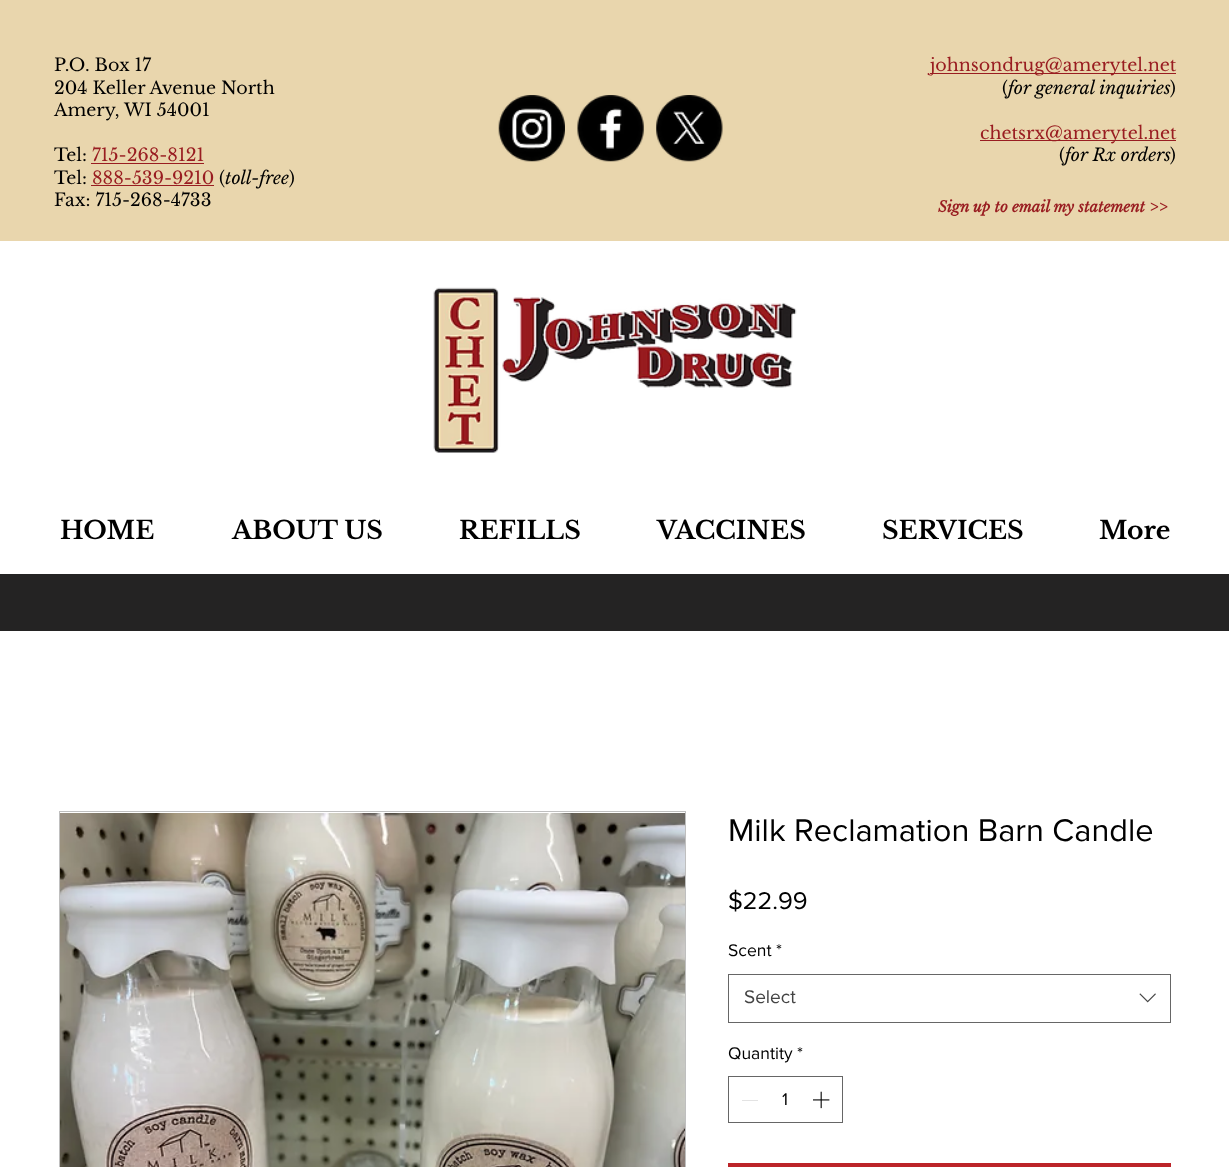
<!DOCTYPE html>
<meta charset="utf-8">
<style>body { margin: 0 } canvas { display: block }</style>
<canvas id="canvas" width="1229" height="1167"></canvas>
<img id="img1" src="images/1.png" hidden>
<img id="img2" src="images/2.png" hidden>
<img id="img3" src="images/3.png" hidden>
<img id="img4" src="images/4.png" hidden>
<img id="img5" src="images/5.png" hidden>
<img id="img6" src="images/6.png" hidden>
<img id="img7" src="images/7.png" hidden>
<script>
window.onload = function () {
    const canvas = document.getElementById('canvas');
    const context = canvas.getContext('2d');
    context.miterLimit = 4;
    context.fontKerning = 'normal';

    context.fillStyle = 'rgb(255, 255, 255)';
    context.fillRect(0, 0, 1229, 1167);
    context.fillStyle = 'rgb(233, 214, 173)';
    context.fillRect(0, 0, 1229, 241);
    context.fillStyle = 'rgb(153, 29, 33)';
    context.fillRect(91, 163, 113, 1);
    context.fillRect(91, 185, 123, 1);
    context.drawImage(document.getElementById('img1'), 498, 95, 67, 67);
    context.drawImage(document.getElementById('img2'), 577, 95, 67, 67);
    context.drawImage(document.getElementById('img3'), 656, 95, 67, 67);
    context.fillRect(930, 73, 246, 1);
    context.fillRect(980, 140, 196, 1);
    context.drawImage(document.getElementById('img4'), 433, 287, 364, 166);
    context.fillStyle = 'rgb(36, 35, 35)';
    context.fillRect(0, 574, 1229, 57);
    context.strokeStyle = 'rgb(191, 191, 191)';
    context.strokeRect(59.5, 811.5, 626, 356);
    context.drawImage(document.getElementById('img5'), 60, 813, 625, 354);
    context.strokeStyle = 'rgb(102, 102, 102)';
    context.strokeRect(728.5, 974.5, 442, 48);
    context.drawImage(document.getElementById('img6'), 1139, 993, 17, 10);
    context.strokeRect(728.5, 1076.5, 114, 46);
    context.fillStyle = 'rgb(227, 227, 227)';
    context.fillRect(742, 1100, 16, 1);
    context.drawImage(document.getElementById('img7'), 813, 1091, 17, 18);
    context.fillStyle = 'rgb(188, 36, 41)';
    context.fillRect(728, 1163, 443, 4);
    context.font = '17.5px Libre Baskerville';
    context.fillStyle = 'rgb(0, 0, 0)';
    context.fillText('P.O. Box 17', 54, 71);
    context.fillText('204 Keller Avenue North', 54, 94);
    context.fillText('Amery, WI 54001', 54, 116);
    context.fillText('Tel:', 54, 161);
    context.fillStyle = 'rgb(153, 29, 33)';
    context.fillText('715-268-8121', 92, 161);
    context.fillStyle = 'rgb(0, 0, 0)';
    context.fillText('Tel:', 54, 184);
    context.fillStyle = 'rgb(153, 29, 33)';
    context.fillText('888-539-9210', 92, 184);
    context.fillStyle = 'rgb(0, 0, 0)';
    context.fillText('(', 219, 184);
    context.font = 'italic 17.5px Libre Baskerville';
    context.fillText('toll-free', 225, 184);
    context.font = '17.5px Libre Baskerville';
    context.fillText(')', 289, 184);
    context.fillText('Fax: 715-268-4733', 54, 206);
    context.fillStyle = 'rgb(153, 29, 33)';
    context.fillText('johnsondrug@amerytel.net', 930, 71);
    context.fillStyle = 'rgb(0, 0, 0)';
    context.fillText('(', 1002, 94);
    context.font = 'italic 17.5px Libre Baskerville';
    context.fillText('for general inquiries', 1008, 94);
    context.font = '17.5px Libre Baskerville';
    context.fillText(')', 1170, 94);
    context.fillStyle = 'rgb(153, 29, 33)';
    context.fillText('chetsrx@amerytel.net', 980, 139);
    context.fillStyle = 'rgb(0, 0, 0)';
    context.fillText('(', 1059, 161);
    context.font = 'italic 17.5px Libre Baskerville';
    context.fillText('for Rx orders', 1065, 161);
    context.font = '17.5px Libre Baskerville';
    context.fillText(')', 1170, 161);
    context.font = 'italic bold 15px Libre Baskerville';
    context.fillStyle = 'rgb(153, 29, 33)';
    context.fillText('Sign up to email my statement >>', 938, 212);
    context.font = 'bold 25px Libre Baskerville';
    context.fillStyle = 'rgb(0, 0, 0)';
    context.fillText('HOME', 60, 539);
    context.fillText('ABOUT US', 232, 539);
    context.fillText('REFILLS', 459, 539);
    context.fillText('VACCINES', 657, 539);
    context.fillText('SERVICES', 882, 539);
    context.fillText('More', 1099, 539);
    context.font = '32.5px "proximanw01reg"';
    context.fillText('Milk Reclamation Barn Candle', 728, 841);
    context.font = '25px "proximanw01reg"';
    context.fillText('$22.99', 728, 909);
    context.font = '17.5px "proximanw01reg"';
    context.fillText('Scent', 728, 956);
    context.fillText('*', 776, 956);
    context.font = '19px "proximanw01reg"';
    context.fillStyle = 'rgb(68, 68, 68)';
    context.fillText('Select', 744, 1003);
    context.font = '17.5px "proximanw01reg"';
    context.fillStyle = 'rgb(0, 0, 0)';
    context.fillText('Quantity', 728, 1059);
    context.fillText('*', 797, 1059);
    context.fillText('1', 782, 1105);
};
</script>
